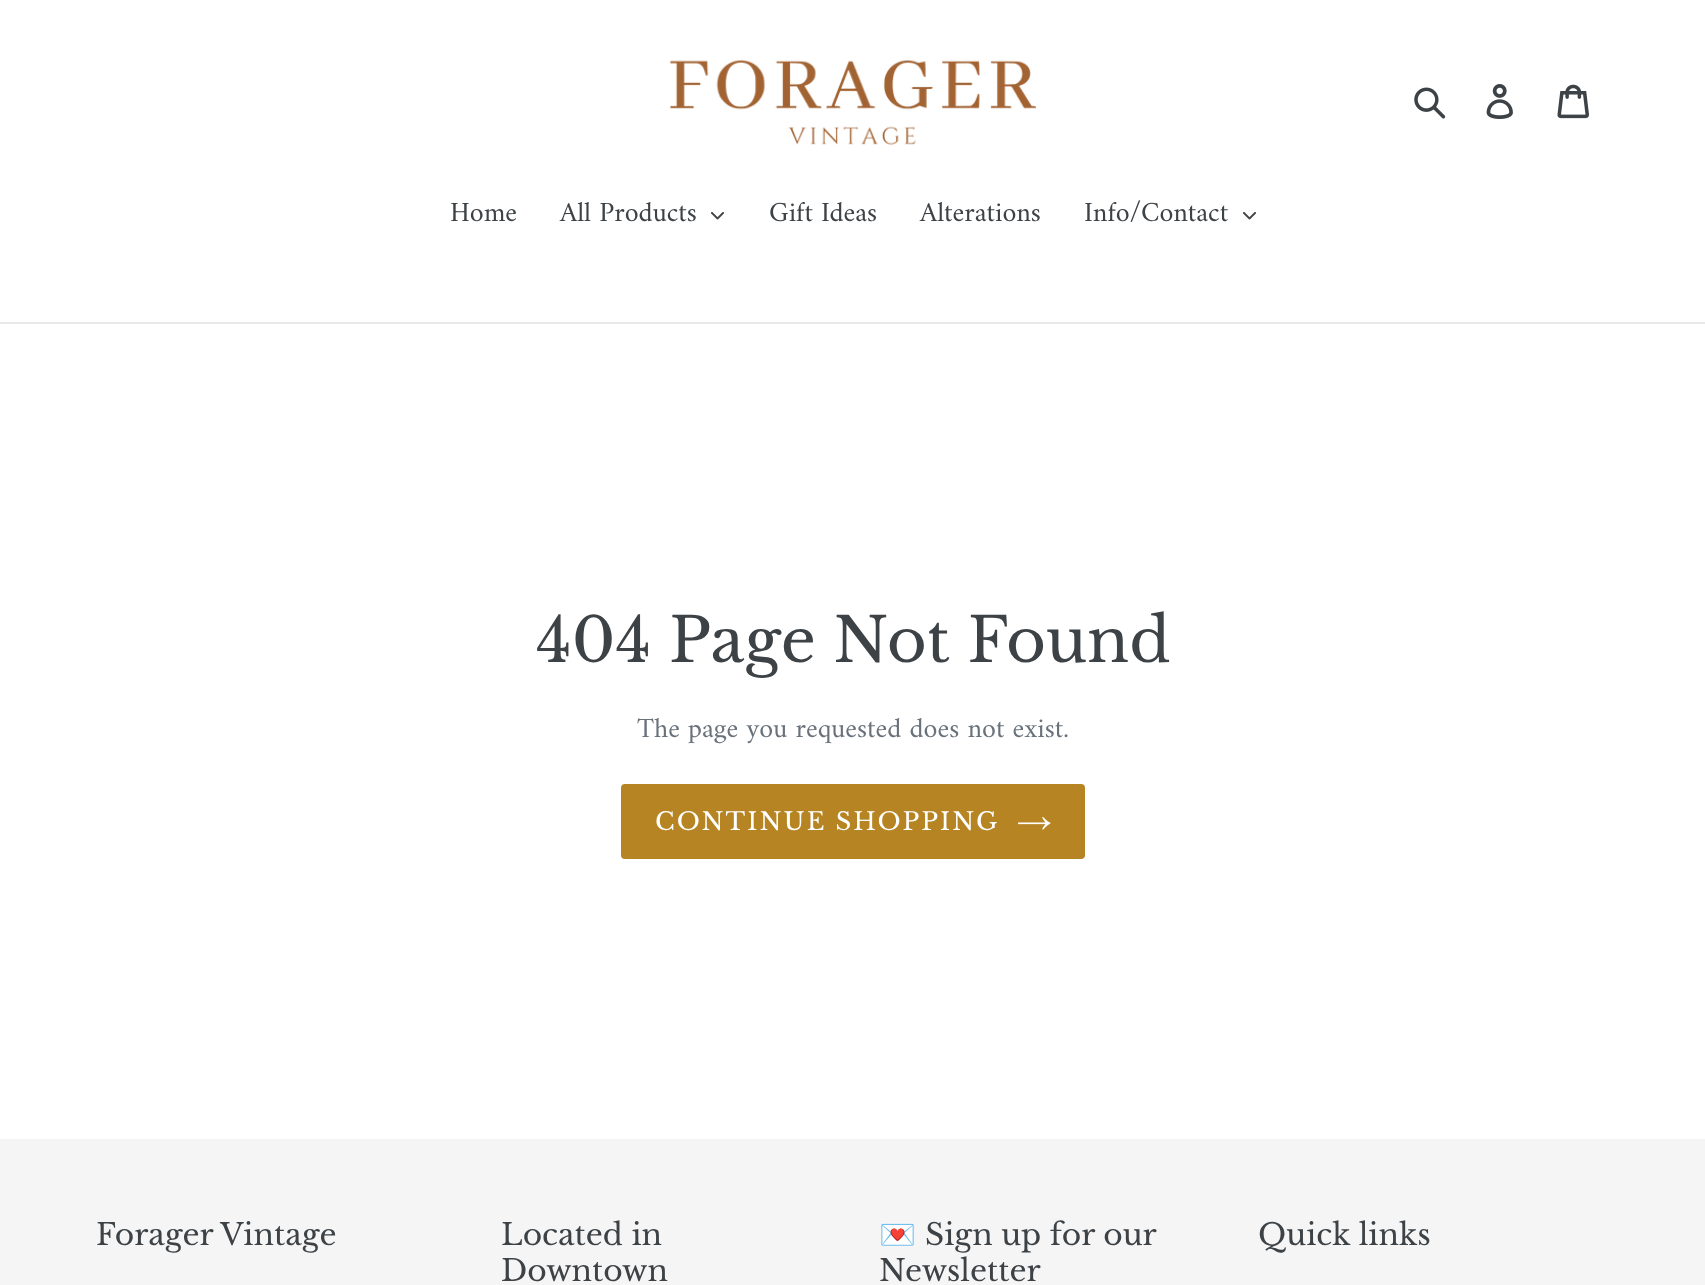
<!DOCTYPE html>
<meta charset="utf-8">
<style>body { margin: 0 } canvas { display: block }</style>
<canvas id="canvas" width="1705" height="1285"></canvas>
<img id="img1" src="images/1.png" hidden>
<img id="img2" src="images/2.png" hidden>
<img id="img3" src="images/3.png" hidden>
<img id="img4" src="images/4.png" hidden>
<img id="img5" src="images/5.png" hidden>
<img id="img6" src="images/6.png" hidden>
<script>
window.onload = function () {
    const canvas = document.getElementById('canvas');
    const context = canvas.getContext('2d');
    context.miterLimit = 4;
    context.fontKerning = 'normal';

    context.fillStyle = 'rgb(255, 255, 255)';
    context.fillRect(0, 0, 1705, 1285);
    context.drawImage(document.getElementById('img1'), 669, 59, 367, 86);
    context.drawImage(document.getElementById('img2'), 1414, 87, 32, 32);
    context.drawImage(document.getElementById('img3'), 1486, 84, 27, 35);
    context.drawImage(document.getElementById('img4'), 1557, 84, 32, 35);
    context.fillStyle = 'rgb(232, 233, 235)';
    context.fillRect(0, 322, 1705, 2);
    context.drawImage(document.getElementById('img5'), 711, 212, 13, 8);
    context.drawImage(document.getElementById('img5'), 1243, 212, 13, 8);
    context.fillStyle = 'rgb(182, 132, 34)';
    context.beginPath();
    context.roundRect(621, 784, 464, 75, 4);
    context.fill();
    context.drawImage(document.getElementById('img6'), 1018, 817, 33, 13);
    context.fillStyle = 'rgb(245, 245, 245)';
    context.fillRect(0, 1139, 1705, 146);
    context.font = '28px Amiri';
    context.fillStyle = 'rgb(61, 66, 70)';
    context.fillText('Home', 450, 221);
    context.fillText('All Products', 560, 221);
    context.fillText('Gift Ideas', 769, 221);
    context.fillText('Alterations', 920, 221);
    context.fillText('Info/Contact', 1084, 221);
    context.font = '61.25px Libre Baskerville';
    context.fillText('404 Page Not Found', 536, 662);
    context.font = '28px Amiri';
    context.fillStyle = 'rgb(105, 114, 123)';
    context.fillText('The page you requested does not exist.', 637, 737);
    context.letterSpacing = '2px';
    context.font = '24.5px Libre Baskerville';
    context.fillStyle = 'rgb(255, 255, 255)';
    context.fillText('CONTINUE SHOPPING', 655, 830);
    context.letterSpacing = '0px';
    context.font = '29.75px Libre Baskerville';
    context.fillStyle = 'rgb(61, 66, 70)';
    context.fillText('Forager Vintage', 96, 1245);
    context.fillText('Located in', 501, 1245);
    context.fillText('Downtown', 501, 1281);
    context.font = '29.75px Noto Color Emoji';
    context.fillText('💌', 879, 1245);
    context.font = '29.75px Libre Baskerville';
    context.fillText('Sign up for our', 925, 1245);
    context.fillText('Newsletter', 879, 1281);
    context.fillText('Quick links', 1258, 1245);
};
</script>
